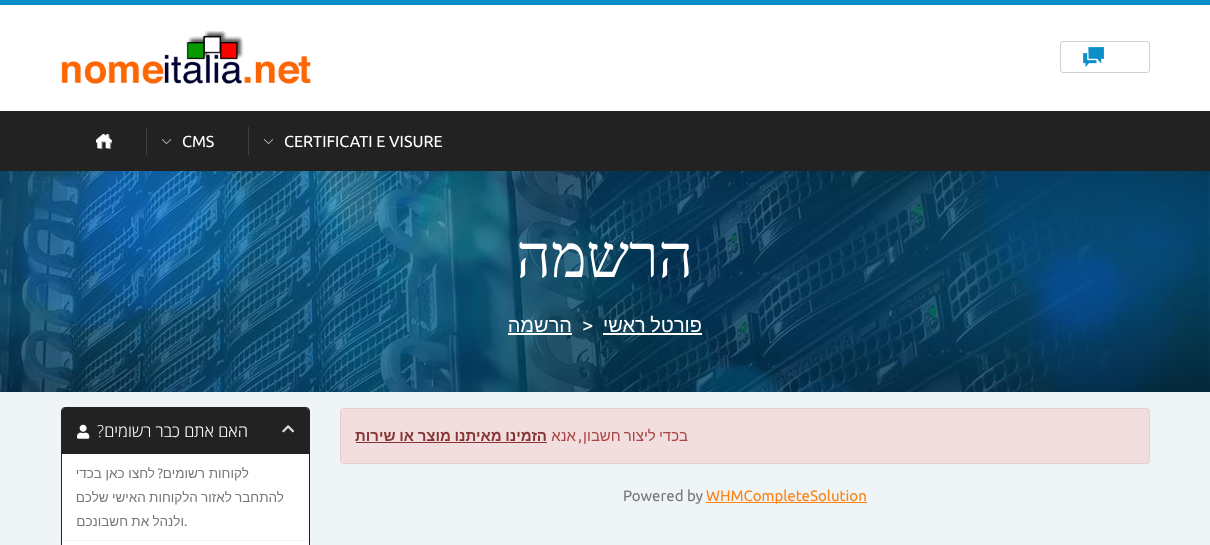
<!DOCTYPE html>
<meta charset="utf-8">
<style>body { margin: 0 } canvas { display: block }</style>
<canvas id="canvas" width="1210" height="545"></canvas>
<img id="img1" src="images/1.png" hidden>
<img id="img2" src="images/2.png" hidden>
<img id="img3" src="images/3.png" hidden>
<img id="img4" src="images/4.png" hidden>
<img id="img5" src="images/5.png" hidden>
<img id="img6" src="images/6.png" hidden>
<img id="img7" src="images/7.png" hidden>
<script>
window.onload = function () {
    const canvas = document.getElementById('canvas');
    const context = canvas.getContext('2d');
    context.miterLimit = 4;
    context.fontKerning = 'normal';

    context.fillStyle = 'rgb(239, 244, 247)';
    context.fillRect(0, 0, 1210, 545);
    context.fillStyle = 'rgb(10, 143, 200)';
    context.fillRect(0, 0, 1210, 5);
    context.fillStyle = 'rgb(255, 255, 255)';
    context.fillRect(0, 5, 1210, 106);
    context.drawImage(document.getElementById('img1'), 1083, 47, 21, 20);
    context.beginPath();
    context.roundRect(1060.5, 41.5, 89, 31, 2.5);
    context.strokeStyle = 'rgb(208, 208, 208)';
    context.stroke();
    context.drawImage(document.getElementById('img2'), 61, 31, 250, 54);
    context.fillStyle = 'rgb(34, 34, 34)';
    context.fillRect(0, 111, 1210, 60);
    context.drawImage(document.getElementById('img3'), 264, 139, 9, 5);
    context.fillStyle = 'rgb(63, 63, 63)';
    context.fillRect(248, 127, 1, 28);
    context.drawImage(document.getElementById('img3'), 162, 139, 9, 5);
    context.fillRect(146, 127, 1, 28);
    context.drawImage(document.getElementById('img4'), 96, 134, 16, 15);
    context.drawImage(document.getElementById('img5'), 0, 171, 1210, 221);
    context.fillStyle = 'rgb(255, 255, 255)';
    context.fillRect(603, 333, 99, 2);
    context.fillRect(508, 333, 64, 2);
    context.fillStyle = 'rgb(242, 222, 222)';
    context.beginPath();
    context.roundRect(340.5, 408.5, 809, 55, 3.5);
    context.fill();
    context.strokeStyle = 'rgb(235, 204, 209)';
    context.stroke();
    context.fillStyle = 'rgb(132, 53, 52)';
    context.fillRect(356, 442, 191, 1);
    context.fillStyle = 'rgb(252, 130, 19)';
    context.fillRect(706, 502, 161, 1);
    context.fillStyle = 'rgb(255, 255, 255)';
    context.beginPath();
    context.roundRect(61.5, 407.5, 248, 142, 3.5);
    context.fill();
    context.strokeStyle = 'rgb(34, 34, 34)';
    context.stroke();
    context.fillStyle = 'rgb(34, 34, 34)';
    context.beginPath();
    context.roundRect(62, 408, 247, 46, [3, 3, 0, 0]);
    context.fill();
    context.drawImage(document.getElementById('img6'), 282, 425, 13, 8);
    context.drawImage(document.getElementById('img7'), 77, 424, 13, 15);
    context.fillStyle = 'rgb(245, 245, 245)';
    context.fillRect(62, 540, 247, 1);
    context.font = '16px Ubuntu';
    context.fillStyle = 'rgb(255, 255, 255)';
    context.fillText('CERTIFICATI E VISURE', 284, 147);
    context.fillText('CMS', 182, 147);
    context.direction = 'rtl';
    context.font = '60px Liberation Serif';
    context.fillText('הרשמה', 693, 277);
    context.wordSpacing = '-1px';
    context.font = '20px Liberation Sans';
    context.fillText('פורטל ראשי', 702, 332);
    context.wordSpacing = '0px';
    context.direction = 'ltr';
    context.font = '20px Ubuntu';
    context.fillText('>', 582, 332);
    context.direction = 'rtl';
    context.font = '20px Liberation Sans';
    context.fillText('הרשמה', 572, 332);
    context.wordSpacing = '-1px';
    context.font = '15px Liberation Sans';
    context.fillStyle = 'rgb(169, 68, 66)';
    context.fillText('בכדי ליצור חשבון', 688, 441);
    context.wordSpacing = '0px';
    context.fillText('אנא', 576, 441);
    context.wordSpacing = '-0.5px';
    context.font = 'bold 15px Liberation Sans';
    context.fillStyle = 'rgb(132, 53, 52)';
    context.fillText('הזמינו מאיתנו מוצר או שירות', 547, 441);
    context.wordSpacing = '0px';
    context.font = '15px Ubuntu';
    context.fillStyle = 'rgb(169, 68, 66)';
    context.fillText(',', 582, 441);
    context.direction = 'ltr';
    context.fillStyle = 'rgb(252, 130, 19)';
    context.fillText('WHMCompleteSolution', 706, 501);
    context.fillStyle = 'rgb(119, 119, 119)';
    context.fillText('Powered by', 623, 501);
    context.direction = 'rtl';
    context.font = '300 16.5px Open Sans';
    context.fillStyle = 'rgb(255, 255, 255)';
    context.fillText('האם אתם כבר רשומים', 248, 437);
    context.direction = 'ltr';
    context.fillText('?', 97, 437);
    context.direction = 'rtl';
    context.font = '13.5px Liberation Sans';
    context.fillStyle = 'rgb(119, 119, 119)';
    context.fillText('לקוחות רשומים', 249, 478);
    context.font = '13.5px Ubuntu';
    context.fillText('?', 163, 478);
    context.font = '13.5px Liberation Sans';
    context.fillText('לחצו כאן בכדי', 155, 478);
    context.wordSpacing = '-0.5px';
    context.fillText('להתחבר לאזור הלקוחות האישי שלכם', 284, 502);
    context.fillText('ולנהל את חשבונכם', 184, 526);
    context.wordSpacing = '0px';
    context.direction = 'ltr';
    context.font = '13.5px Ubuntu';
    context.fillText('.', 184, 526);
};
</script>
